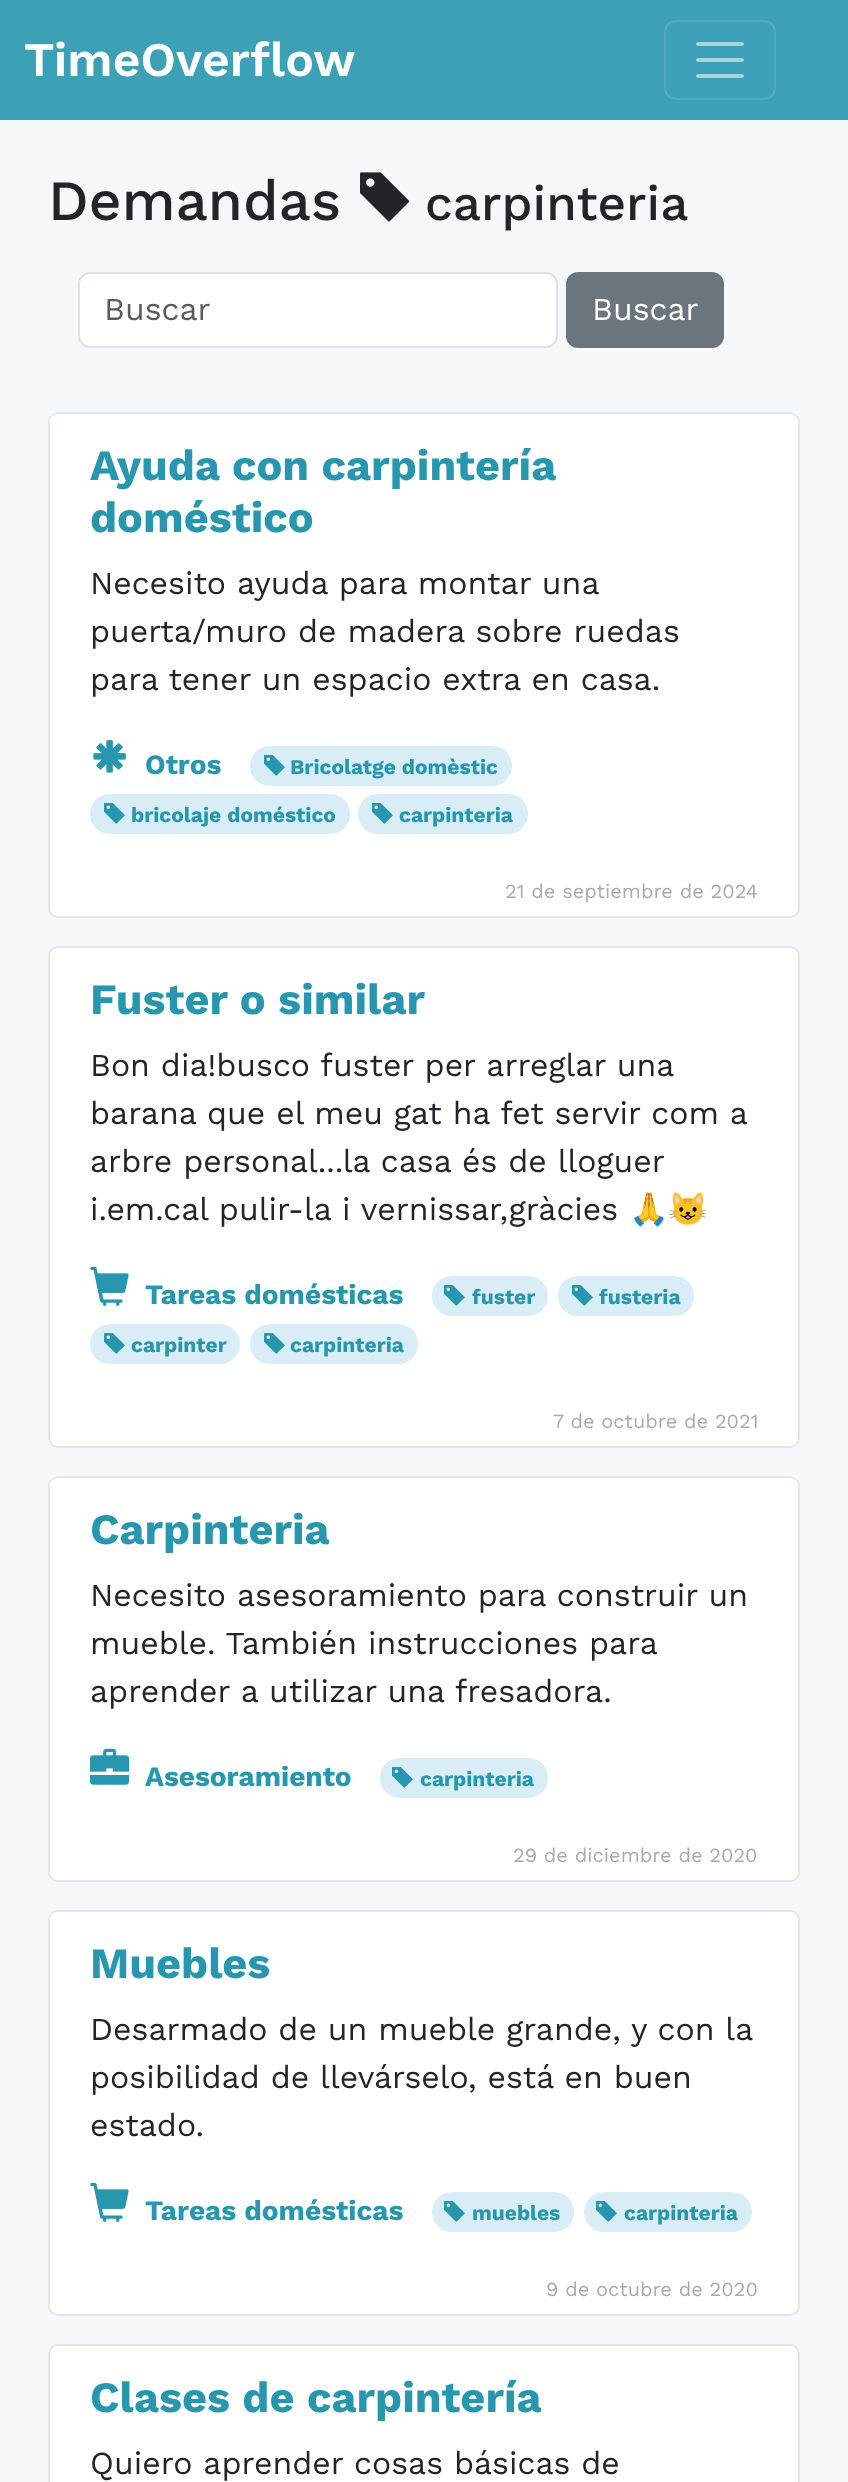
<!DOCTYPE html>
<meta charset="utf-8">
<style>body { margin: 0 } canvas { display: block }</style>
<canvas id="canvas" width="848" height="2482"></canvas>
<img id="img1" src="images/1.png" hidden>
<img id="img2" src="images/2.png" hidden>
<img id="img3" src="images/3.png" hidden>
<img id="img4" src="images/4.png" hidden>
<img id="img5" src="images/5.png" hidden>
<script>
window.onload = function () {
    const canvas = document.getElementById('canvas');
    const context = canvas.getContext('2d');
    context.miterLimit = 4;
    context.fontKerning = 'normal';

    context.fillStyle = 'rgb(245, 248, 250)';
    context.fillRect(0, 0, 848, 2482);
    context.fillStyle = 'rgb(60, 161, 183)';
    context.fillRect(0, 0, 848, 120);
    context.beginPath();
    context.roundRect(665, 21, 110, 78, 11);
    context.strokeStyle = 'rgb(80, 170, 190)';
    context.lineWidth = 2;
    context.stroke();
    context.beginPath();
    context.moveTo(698, 44);
    context.lineTo(742, 44);
    context.moveTo(698, 60);
    context.lineTo(742, 60);
    context.moveTo(698, 76);
    context.lineTo(742, 76);
    context.strokeStyle = 'rgb(167, 213, 223)';
    context.lineWidth = 4;
    context.lineCap = 'round';
    context.stroke();
    context.drawImage(document.getElementById('img1'), 360, 172, 50, 50);
    context.fillStyle = 'rgb(255, 255, 255)';
    context.beginPath();
    context.roundRect(79, 273, 478, 74, 11);
    context.fill();
    context.strokeStyle = 'rgb(222, 226, 230)';
    context.lineWidth = 2;
    context.stroke();
    context.fillStyle = 'rgb(108, 117, 125)';
    context.beginPath();
    context.roundRect(567, 273, 156, 74, 11);
    context.fill();
    context.strokeStyle = 'rgb(108, 117, 125)';
    context.stroke();
    context.fillStyle = 'rgb(255, 255, 255)';
    context.beginPath();
    context.roundRect(49, 413, 750, 504, 9);
    context.fill();
    context.strokeStyle = 'rgb(225, 232, 237)';
    context.stroke();
    context.drawImage(document.getElementById('img2'), 93, 740, 33, 33);
    context.fillStyle = 'rgb(217, 237, 247)';
    context.beginPath();
    context.roundRect(250, 746, 262, 40, 20);
    context.fill();
    context.drawImage(document.getElementById('img3'), 264, 755, 21, 21);
    context.beginPath();
    context.roundRect(90, 794, 260, 40, 20);
    context.fill();
    context.drawImage(document.getElementById('img3'), 104, 803, 21, 21);
    context.beginPath();
    context.roundRect(358, 794, 170, 40, 20);
    context.fill();
    context.drawImage(document.getElementById('img3'), 372, 803, 21, 21);
    context.fillStyle = 'rgb(255, 255, 255)';
    context.beginPath();
    context.roundRect(49, 947, 750, 500, 9);
    context.fill();
    context.stroke();
    context.drawImage(document.getElementById('img4'), 90, 1266, 39, 40);
    context.fillStyle = 'rgb(217, 237, 247)';
    context.beginPath();
    context.roundRect(432, 1276, 116, 40, 20);
    context.fill();
    context.drawImage(document.getElementById('img3'), 444, 1285, 21, 21);
    context.beginPath();
    context.roundRect(558, 1276, 136, 40, 20);
    context.fill();
    context.drawImage(document.getElementById('img3'), 572, 1285, 21, 21);
    context.beginPath();
    context.roundRect(90, 1324, 150, 40, 20);
    context.fill();
    context.drawImage(document.getElementById('img3'), 104, 1333, 21, 21);
    context.beginPath();
    context.roundRect(250, 1324, 168, 40, 20);
    context.fill();
    context.drawImage(document.getElementById('img3'), 264, 1333, 21, 21);
    context.fillStyle = 'rgb(255, 255, 255)';
    context.beginPath();
    context.roundRect(49, 1477, 750, 404, 9);
    context.fill();
    context.stroke();
    context.drawImage(document.getElementById('img5'), 90, 1748, 40, 37);
    context.fillStyle = 'rgb(217, 237, 247)';
    context.beginPath();
    context.roundRect(380, 1758, 168, 40, 20);
    context.fill();
    context.drawImage(document.getElementById('img3'), 392, 1767, 21, 21);
    context.fillStyle = 'rgb(255, 255, 255)';
    context.beginPath();
    context.roundRect(49, 1911, 750, 404, 9);
    context.fill();
    context.stroke();
    context.drawImage(document.getElementById('img4'), 90, 2182, 39, 40);
    context.fillStyle = 'rgb(217, 237, 247)';
    context.beginPath();
    context.roundRect(432, 2192, 142, 40, 20);
    context.fill();
    context.drawImage(document.getElementById('img3'), 444, 2201, 21, 21);
    context.beginPath();
    context.roundRect(584, 2192, 168, 40, 20);
    context.fill();
    context.drawImage(document.getElementById('img3'), 596, 2201, 21, 21);
    context.fillStyle = 'rgb(255, 255, 255)';
    context.beginPath();
    context.roundRect(49, 2345, 750, 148, 9);
    context.fill();
    context.stroke();
    context.font = '600 48px Work Sans';
    context.fillText('TimeOverflow', 24, 76);
    context.font = '500 56.75px Work Sans';
    context.fillStyle = 'rgb(33, 37, 41)';
    context.fillText('Demandas', 48, 220);
    context.font = '500 49.5px Work Sans';
    context.fillText('carpinteria', 425, 220);
    context.font = '32px Work Sans';
    context.fillStyle = 'rgb(89, 92, 95)';
    context.fillText('Buscar', 104, 320);
    context.fillStyle = 'rgb(255, 255, 255)';
    context.fillText('Buscar', 592, 320);
    context.font = 'bold 43.25px Work Sans';
    context.fillStyle = 'rgb(39, 151, 175)';
    context.fillText('Ayuda con carpintería', 90, 480);
    context.fillText('doméstico', 90, 532);
    context.font = '32px Work Sans';
    context.fillStyle = 'rgb(33, 37, 41)';
    context.fillText('Necesito ayuda para montar una', 90, 594);
    context.fillText('puerta/muro de madera sobre ruedas', 90, 642);
    context.fillText('para tener un espacio extra en casa.', 90, 690);
    context.font = 'bold 28px Work Sans';
    context.fillStyle = 'rgb(39, 151, 175)';
    context.fillText('Otros', 145, 774);
    context.font = 'bold 21px Work Sans';
    context.fillText('Bricolatge domèstic', 290, 774);
    context.fillText('bricolaje doméstico', 131, 822);
    context.fillText('carpinteria', 399, 822);
    context.font = '20px Work Sans';
    context.fillStyle = 'rgb(170, 170, 170)';
    context.fillText('21 de septiembre de 2024', 505, 898);
    context.font = 'bold 43.25px Work Sans';
    context.fillStyle = 'rgb(39, 151, 175)';
    context.fillText('Fuster o similar', 90, 1014);
    context.font = '32px Work Sans';
    context.fillStyle = 'rgb(33, 37, 41)';
    context.fillText('Bon dia!busco fuster per arreglar una', 90, 1076);
    context.fillText('barana que el meu gat ha fet servir com a', 90, 1124);
    context.fillText('arbre personal...la casa és de lloguer', 90, 1172);
    context.fillText('i.em.cal pulir-la i vernissar,gràcies', 90, 1220);
    context.font = '32px Noto Color Emoji';
    context.fillText('🙏😺', 629, 1220);
    context.font = 'bold 28px Work Sans';
    context.fillStyle = 'rgb(39, 151, 175)';
    context.fillText('Tareas domésticas', 145, 1304);
    context.font = 'bold 21px Work Sans';
    context.fillText('fuster', 472, 1304);
    context.fillText('fusteria', 599, 1304);
    context.fillText('carpinter', 131, 1352);
    context.fillText('carpinteria', 290, 1352);
    context.font = '20px Work Sans';
    context.fillStyle = 'rgb(170, 170, 170)';
    context.fillText('7 de octubre de 2021', 553, 1428);
    context.font = 'bold 43.25px Work Sans';
    context.fillStyle = 'rgb(39, 151, 175)';
    context.fillText('Carpinteria', 90, 1544);
    context.font = '32px Work Sans';
    context.fillStyle = 'rgb(33, 37, 41)';
    context.fillText('Necesito asesoramiento para construir un', 90, 1606);
    context.fillText('mueble. También instrucciones para', 90, 1654);
    context.fillText('aprender a utilizar una fresadora.', 90, 1702);
    context.font = 'bold 28px Work Sans';
    context.fillStyle = 'rgb(39, 151, 175)';
    context.fillText('Asesoramiento', 145, 1786);
    context.font = 'bold 21px Work Sans';
    context.fillText('carpinteria', 420, 1786);
    context.font = '20px Work Sans';
    context.fillStyle = 'rgb(170, 170, 170)';
    context.fillText('29 de diciembre de 2020', 513, 1862);
    context.font = 'bold 43.25px Work Sans';
    context.fillStyle = 'rgb(39, 151, 175)';
    context.fillText('Muebles', 90, 1978);
    context.font = '32px Work Sans';
    context.fillStyle = 'rgb(33, 37, 41)';
    context.fillText('Desarmado de un mueble grande, y con la', 90, 2040);
    context.fillText('posibilidad de llevárselo, está en buen', 90, 2088);
    context.fillText('estado.', 90, 2136);
    context.font = 'bold 28px Work Sans';
    context.fillStyle = 'rgb(39, 151, 175)';
    context.fillText('Tareas domésticas', 145, 2220);
    context.font = 'bold 21px Work Sans';
    context.fillText('muebles', 472, 2220);
    context.fillText('carpinteria', 624, 2220);
    context.font = '20px Work Sans';
    context.fillStyle = 'rgb(170, 170, 170)';
    context.fillText('9 de octubre de 2020', 546, 2296);
    context.font = 'bold 43.25px Work Sans';
    context.fillStyle = 'rgb(39, 151, 175)';
    context.fillText('Clases de carpintería', 90, 2412);
    context.font = '32px Work Sans';
    context.fillStyle = 'rgb(33, 37, 41)';
    context.fillText('Quiero aprender cosas básicas de', 90, 2474);
};
</script>
